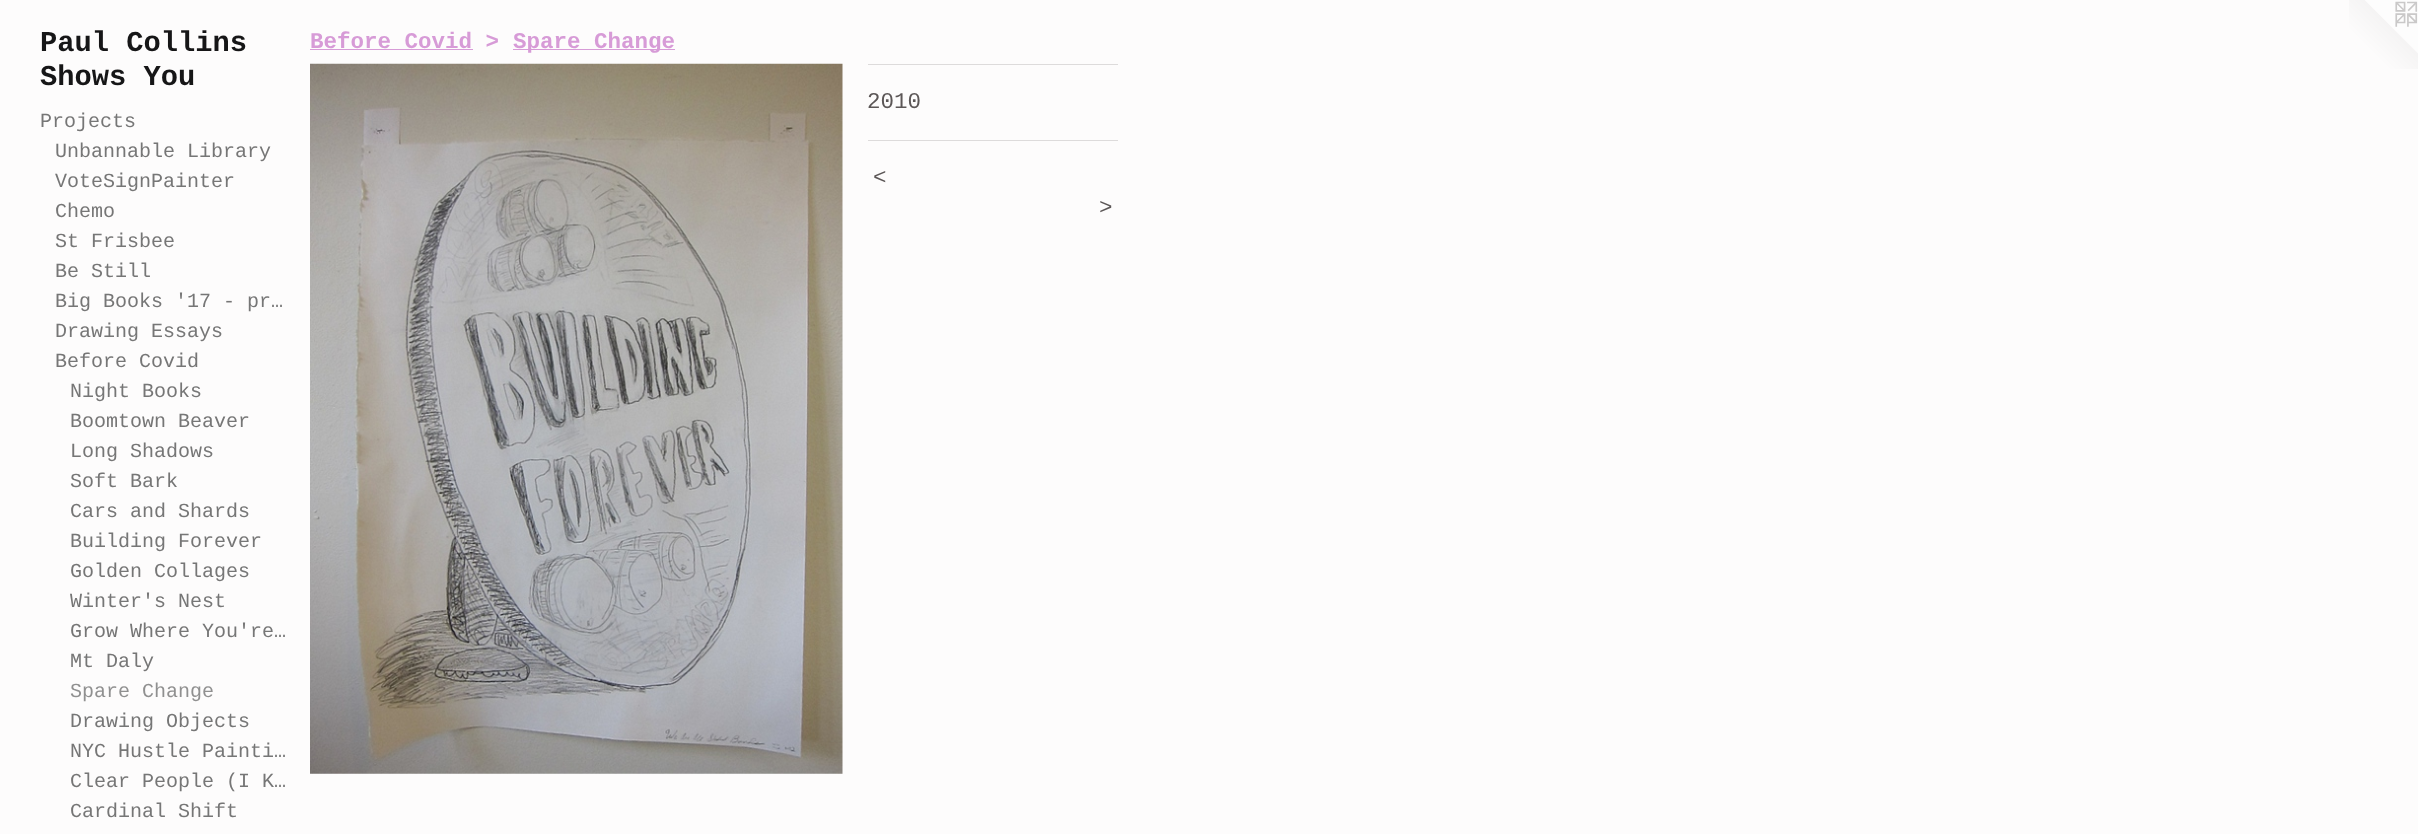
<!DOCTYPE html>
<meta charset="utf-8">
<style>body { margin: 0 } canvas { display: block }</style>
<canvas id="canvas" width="2418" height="834"></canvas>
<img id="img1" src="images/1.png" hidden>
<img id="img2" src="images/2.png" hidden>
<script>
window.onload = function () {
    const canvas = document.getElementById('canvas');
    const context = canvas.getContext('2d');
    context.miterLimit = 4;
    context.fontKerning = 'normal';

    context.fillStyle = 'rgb(253, 252, 252)';
    context.fillRect(0, 0, 2418, 834);
    context.fillStyle = 'rgb(215, 155, 215)';
    context.fillRect(310, 49, 163, 1);
    context.fillRect(513, 49, 162, 1);
    context.drawImage(document.getElementById('img1'), 310, 63, 533, 711);
    context.fillStyle = 'rgb(221, 219, 219)';
    context.fillRect(868, 64, 250, 1);
    context.fillRect(868, 140, 250, 1);
    context.drawImage(document.getElementById('img2'), 2349, 0, 69, 69);
    context.font = 'bold 28.75px Liberation Mono';
    context.fillStyle = 'rgb(22, 22, 23)';
    context.fillText('Paul Collins', 40, 51);
    context.fillText('Shows You', 40, 85);
    context.font = '20px Liberation Mono';
    context.fillStyle = 'rgb(118, 118, 118)';
    context.fillText('Projects', 40, 127);
    context.fillText('Unbannable Library', 55, 157);
    context.fillText('VoteSignPainter', 55, 187);
    context.fillText('Chemo', 55, 217);
    context.fillText('St Frisbee', 55, 247);
    context.fillText('Be Still', 55, 277);
    context.fillText('Big Books \'17 - pr…', 55, 307);
    context.fillText('Drawing Essays', 55, 337);
    context.fillText('Before Covid', 55, 367);
    context.fillText('Night Books', 70, 397);
    context.fillText('Boomtown Beaver', 70, 427);
    context.fillText('Long Shadows', 70, 457);
    context.fillText('Soft Bark', 70, 487);
    context.fillText('Cars and Shards', 70, 517);
    context.fillText('Building Forever', 70, 547);
    context.fillText('Golden Collages', 70, 577);
    context.fillText('Winter\'s Nest', 70, 607);
    context.fillText('Grow Where You\'re…', 70, 637);
    context.fillText('Mt Daly', 70, 667);
    context.fillStyle = 'rgb(144, 144, 144)';
    context.fillText('Spare Change', 70, 697);
    context.fillStyle = 'rgb(118, 118, 118)';
    context.fillText('Drawing Objects', 70, 727);
    context.fillText('NYC Hustle Painti…', 70, 757);
    context.fillText('Clear People (I K…', 70, 787);
    context.fillText('Cardinal Shift', 70, 817);
    context.font = 'bold 22.5px Liberation Mono';
    context.fillStyle = 'rgb(215, 155, 215)';
    context.fillText('Before Covid >', 310, 48);
    context.fillText('Spare Change', 513, 48);
    context.font = '22.5px Liberation Mono';
    context.fillStyle = 'rgb(92, 87, 87)';
    context.fillText('2010', 867, 108);
    context.letterSpacing = '1px';
    context.font = 'italic 22.5px Liberation Mono';
    context.fillText('<', 873, 184);
    context.fillText('>', 1099, 214);
};
</script>
